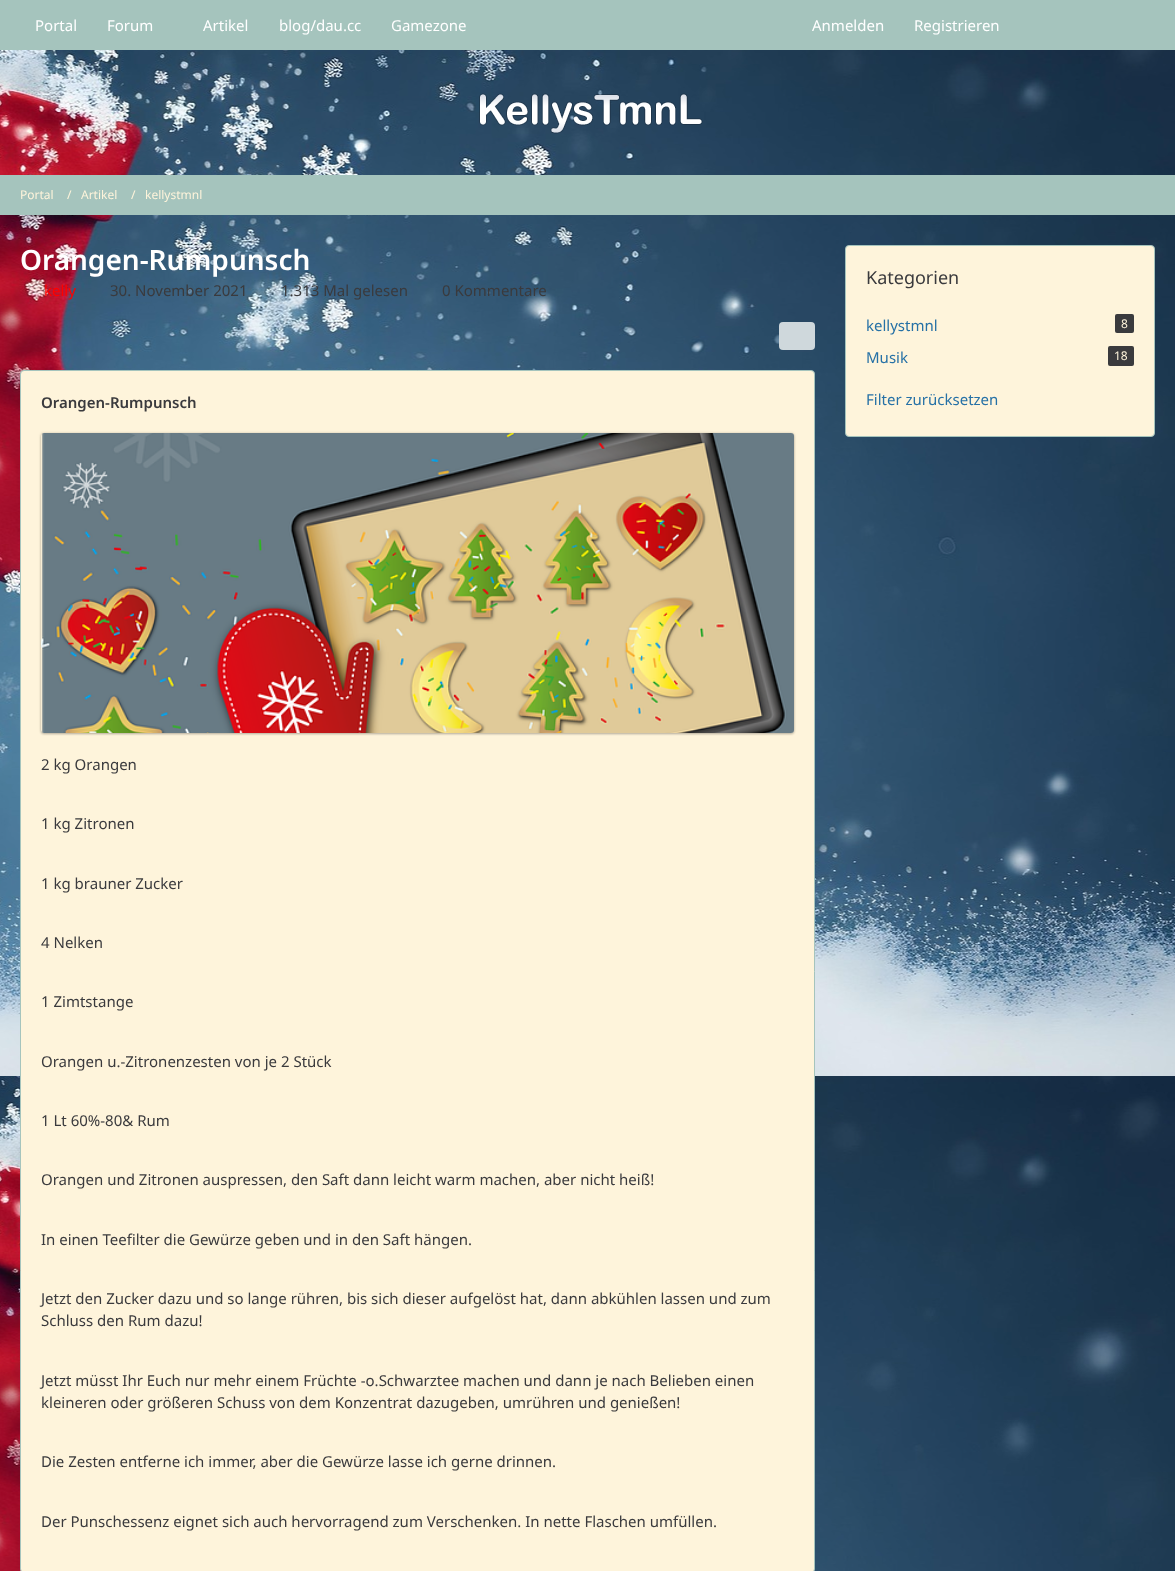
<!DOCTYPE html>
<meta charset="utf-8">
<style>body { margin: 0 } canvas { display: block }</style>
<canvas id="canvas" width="1175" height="1571"></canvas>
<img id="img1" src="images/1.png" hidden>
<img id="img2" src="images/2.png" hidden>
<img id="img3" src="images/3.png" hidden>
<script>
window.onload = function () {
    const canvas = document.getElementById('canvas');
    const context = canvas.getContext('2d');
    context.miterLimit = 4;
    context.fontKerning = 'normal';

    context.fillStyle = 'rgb(255, 255, 255)';
    context.fillRect(0, 0, 1175, 1571);
    context.drawImage(document.getElementById('img1'), 0, 50, 1175, 1521);
    context.fillStyle = 'rgb(165, 196, 189)';
    context.fillRect(0, 0, 1175, 50);
    context.drawImage(document.getElementById('img2'), 479, 93, 224, 41);
    context.fillRect(0, 175, 1175, 40);
    context.fillStyle = 'rgb(207, 216, 220)';
    context.beginPath();
    context.roundRect(779, 322, 36, 28, 4);
    context.fill();
    context.fillStyle = 'rgb(254, 244, 219)';
    context.beginPath();
    context.roundRect(20.5, 370.5, 794, 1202, 3.5);
    context.fill();
    context.strokeStyle = 'rgb(165, 196, 189)';
    context.stroke();
    context.save();
    context.beginPath();
    context.moveTo(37, 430);
    context.lineTo(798, 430);
    context.lineTo(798, 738);
    context.lineTo(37, 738);
    context.closePath();
    context.moveTo(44, 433);
    context.lineTo(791, 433);
    context.bezierCurveTo(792.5, 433, 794, 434.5, 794, 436);
    context.lineTo(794, 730);
    context.bezierCurveTo(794, 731.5, 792.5, 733, 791, 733);
    context.lineTo(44, 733);
    context.bezierCurveTo(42.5, 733, 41, 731.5, 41, 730);
    context.lineTo(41, 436);
    context.bezierCurveTo(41, 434.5, 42.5, 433, 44, 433);
    context.closePath();
    context.clip('evenodd');
    context.fillStyle = 'rgba(0, 0, 0, 0.24)';
    context.filter = 'blur(1px)';
    context.beginPath();
    context.roundRect(41, 434, 753, 300, 3);
    context.fill();
    context.filter = 'none';
    context.restore();
    context.save();
    context.beginPath();
    context.moveTo(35, 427);
    context.lineTo(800, 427);
    context.lineTo(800, 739);
    context.lineTo(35, 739);
    context.closePath();
    context.moveTo(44, 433);
    context.lineTo(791, 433);
    context.bezierCurveTo(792.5, 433, 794, 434.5, 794, 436);
    context.lineTo(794, 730);
    context.bezierCurveTo(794, 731.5, 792.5, 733, 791, 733);
    context.lineTo(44, 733);
    context.bezierCurveTo(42.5, 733, 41, 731.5, 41, 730);
    context.lineTo(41, 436);
    context.bezierCurveTo(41, 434.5, 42.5, 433, 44, 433);
    context.closePath();
    context.clip('evenodd');
    context.fillStyle = 'rgba(0, 0, 0, 0.12)';
    context.filter = 'blur(1.5px)';
    context.beginPath();
    context.roundRect(41, 433, 753, 300, 3);
    context.fill();
    context.filter = 'none';
    context.restore();
    context.drawImage(document.getElementById('img3'), 41, 433, 753, 300);
    context.beginPath();
    context.roundRect(845.5, 245.5, 309, 191, 3.5);
    context.fill();
    context.stroke();
    context.fillStyle = 'rgb(58, 58, 61)';
    context.beginPath();
    context.roundRect(1115, 314, 19, 19, 2);
    context.fill();
    context.beginPath();
    context.roundRect(1108, 346, 26, 20, 2);
    context.fill();
    context.font = '15px Noto Sans';
    context.fillStyle = 'rgb(255, 255, 255)';
    context.fillText('Portal', 35, 31);
    context.fillText('Forum', 107, 31);
    context.fillText('Artikel', 203, 31);
    context.fillText('blog/dau.cc', 279, 31);
    context.fillText('Gamezone', 391, 31);
    context.fillText('Anmelden', 812, 31);
    context.fillText('Registrieren', 914, 31);
    context.font = '12px Noto Sans';
    context.fillStyle = 'rgb(254, 244, 219)';
    context.fillText('Portal', 20, 199);
    context.fillText('/', 67, 199);
    context.fillText('Artikel', 81, 199);
    context.fillText('/', 131, 199);
    context.fillText('kellystmnl', 145, 199);
    context.font = '600 28px Noto Sans';
    context.fillStyle = 'rgb(255, 255, 255)';
    context.fillText('Orangen-Rumpunsch', 20, 270);
    context.font = '15px Noto Sans';
    context.fillStyle = 'rgb(255, 0, 0)';
    context.fillText('kelly', 44, 296);
    context.fillStyle = 'rgb(58, 58, 61)';
    context.fillText('30. November 2021', 110, 296);
    context.fillText('1.313 Mal gelesen', 281, 296);
    context.fillText('0 Kommentare', 442, 296);
    context.font = '600 15px Noto Sans';
    context.fillText('Orangen-Rumpunsch', 41, 408);
    context.font = '15px Noto Sans';
    context.fillText('2 kg Orangen', 41, 770);
    context.fillText('1 kg Zitronen', 41, 829);
    context.fillText('1 kg brauner Zucker', 41, 889);
    context.fillText('4 Nelken', 41, 948);
    context.fillText('1 Zimtstange', 41, 1007);
    context.fillText('Orangen u.-Zitronenzesten von je 2 Stück', 41, 1067);
    context.fillText('1 Lt 60%-80& Rum', 41, 1126);
    context.fillText('Orangen und Zitronen auspressen, den Saft dann leicht warm machen, aber nicht heiß!', 41, 1185);
    context.fillText('In einen Teefilter die Gewürze geben und in den Saft hängen.', 41, 1245);
    context.fillText('Jetzt den Zucker dazu und so lange rühren, bis sich dieser aufgelöst hat, dann abkühlen lassen und zum', 41, 1304);
    context.fillText('Schluss den Rum dazu!', 41, 1326);
    context.fillText('Jetzt müsst Ihr Euch nur mehr einem Früchte -o.Schwarztee machen und dann je nach Belieben einen', 41, 1386);
    context.fillText('kleineren oder größeren Schuss von dem Konzentrat dazugeben, umrühren und genießen!', 41, 1408);
    context.fillText('Die Zesten entferne ich immer, aber die Gewürze lasse ich gerne drinnen.', 41, 1467);
    context.fillText('Der Punschessenz eignet sich auch hervorragend zum Verschenken. In nette Flaschen umfüllen.', 41, 1527);
    context.font = '18px Noto Sans';
    context.fillText('Kategorien', 866, 284);
    context.font = '15px Noto Sans';
    context.fillStyle = 'rgb(38, 113, 166)';
    context.fillText('kellystmnl', 866, 331);
    context.font = '12px Noto Sans';
    context.fillStyle = 'rgb(254, 244, 219)';
    context.fillText('8', 1121, 328);
    context.font = '15px Noto Sans';
    context.fillStyle = 'rgb(38, 113, 166)';
    context.fillText('Musik', 866, 363);
    context.font = '12px Noto Sans';
    context.fillStyle = 'rgb(254, 244, 219)';
    context.fillText('18', 1114, 360);
    context.font = '15px Noto Sans';
    context.fillStyle = 'rgb(38, 113, 166)';
    context.fillText('Filter zurücksetzen', 866, 405);
};
</script>
